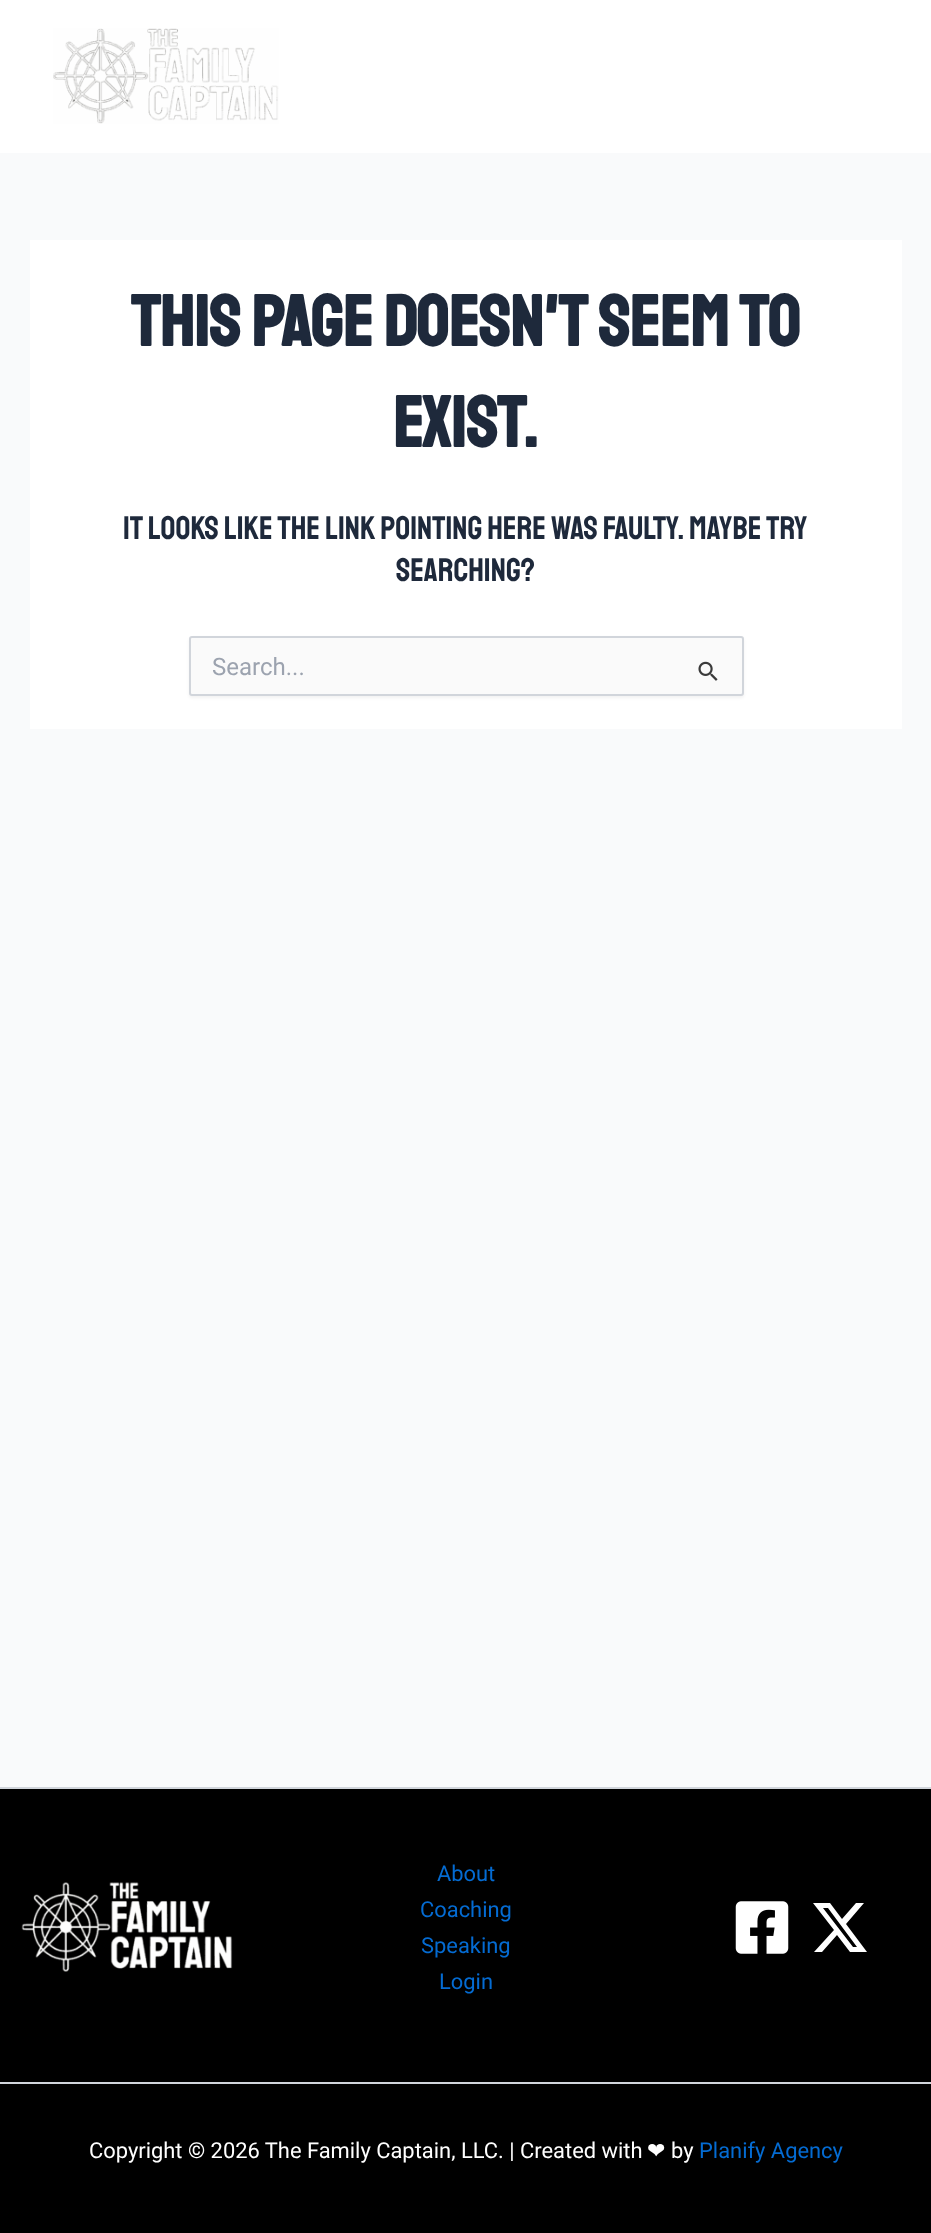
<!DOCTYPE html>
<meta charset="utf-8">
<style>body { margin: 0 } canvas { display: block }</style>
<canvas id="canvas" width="931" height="2233"></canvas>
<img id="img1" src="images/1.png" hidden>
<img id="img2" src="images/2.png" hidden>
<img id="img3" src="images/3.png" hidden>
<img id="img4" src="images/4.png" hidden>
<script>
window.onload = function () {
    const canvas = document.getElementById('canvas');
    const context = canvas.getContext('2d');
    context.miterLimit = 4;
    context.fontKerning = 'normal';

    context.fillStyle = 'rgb(249, 250, 251)';
    context.fillRect(0, 0, 931, 2233);
    context.fillStyle = 'rgb(255, 255, 255)';
    context.fillRect(0, 0, 931, 153);
    context.drawImage(document.getElementById('img1'), 53, 28, 226, 96);
    context.fillRect(30, 240, 872, 489);
    context.fillStyle = 'rgba(0, 0, 0, 0.05)';
    context.filter = 'blur(1.5px)';
    context.beginPath();
    context.roundRect(189, 638, 555, 60, 3);
    context.fill();
    context.filter = 'none';
    context.fillStyle = 'rgb(250, 250, 250)';
    context.beginPath();
    context.roundRect(190, 637, 553, 58, 2);
    context.fill();
    context.strokeStyle = 'rgb(209, 213, 219)';
    context.lineWidth = 2;
    context.stroke();
    context.drawImage(document.getElementById('img2'), 698, 661, 20, 20);
    context.fillStyle = 'rgb(0, 0, 0)';
    context.fillRect(0, 1789, 931, 293);
    context.fillStyle = 'rgb(209, 213, 219)';
    context.fillRect(0, 1787, 931, 2);
    context.drawImage(document.getElementById('img3'), 21, 1882, 212, 90);
    context.drawImage(document.getElementById('img4'), 735, 1901, 54, 53);
    context.fillStyle = 'rgb(255, 255, 255)';
    context.beginPath();
    context.moveTo(856, 1903);
    context.lineTo(864, 1903);
    context.lineTo(846, 1924);
    context.lineTo(867, 1952);
    context.lineTo(850, 1952);
    context.lineTo(837, 1935);
    context.lineTo(822, 1952);
    context.lineTo(814, 1952);
    context.lineTo(834, 1930);
    context.lineTo(813, 1903);
    context.lineTo(830, 1903);
    context.lineTo(842, 1919);
    context.closePath();
    context.moveTo(853, 1947);
    context.lineTo(857, 1947);
    context.lineTo(828, 1908);
    context.lineTo(823, 1908);
    context.closePath();
    context.fill();
    context.fillStyle = 'rgb(0, 0, 0)';
    context.fillRect(0, 2084, 931, 149);
    context.fillStyle = 'rgb(209, 213, 219)';
    context.fillRect(0, 2082, 931, 2);
    context.font = 'bold 72px Staatliches';
    context.fillStyle = 'rgb(30, 41, 59)';
    context.fillText('This page doesn\'t seem to', 131, 346);
    context.fillText('exist.', 393, 447);
    context.font = '32.8px Staatliches';
    context.fillText('It looks like the link pointing here was faulty. Maybe try', 123, 539);
    context.fillText('searching?', 396, 581);
    context.font = '24px Roboto';
    context.fillStyle = 'rgb(156, 163, 175)';
    context.fillText('Search...', 212, 675);
    context.font = '21.9px Roboto';
    context.fillStyle = 'rgb(4, 107, 210)';
    context.fillText('About', 437, 1881);
    context.fillText('Coaching', 420, 1917);
    context.fillText('Speaking', 421, 1953);
    context.fillText('Login', 439, 1989);
    context.fillStyle = 'rgb(255, 255, 255)';
    context.fillText('Copyright © 2026 The Family Captain, LLC. | Created with', 89, 2158);
    context.font = '21.9px DejaVu Sans';
    context.fillText('❤︎', 647, 2158);
    context.font = '21.9px Roboto';
    context.fillText('by', 671, 2158);
    context.fillStyle = 'rgb(4, 107, 210)';
    context.fillText('Planify Agency', 699, 2158);
};
</script>
